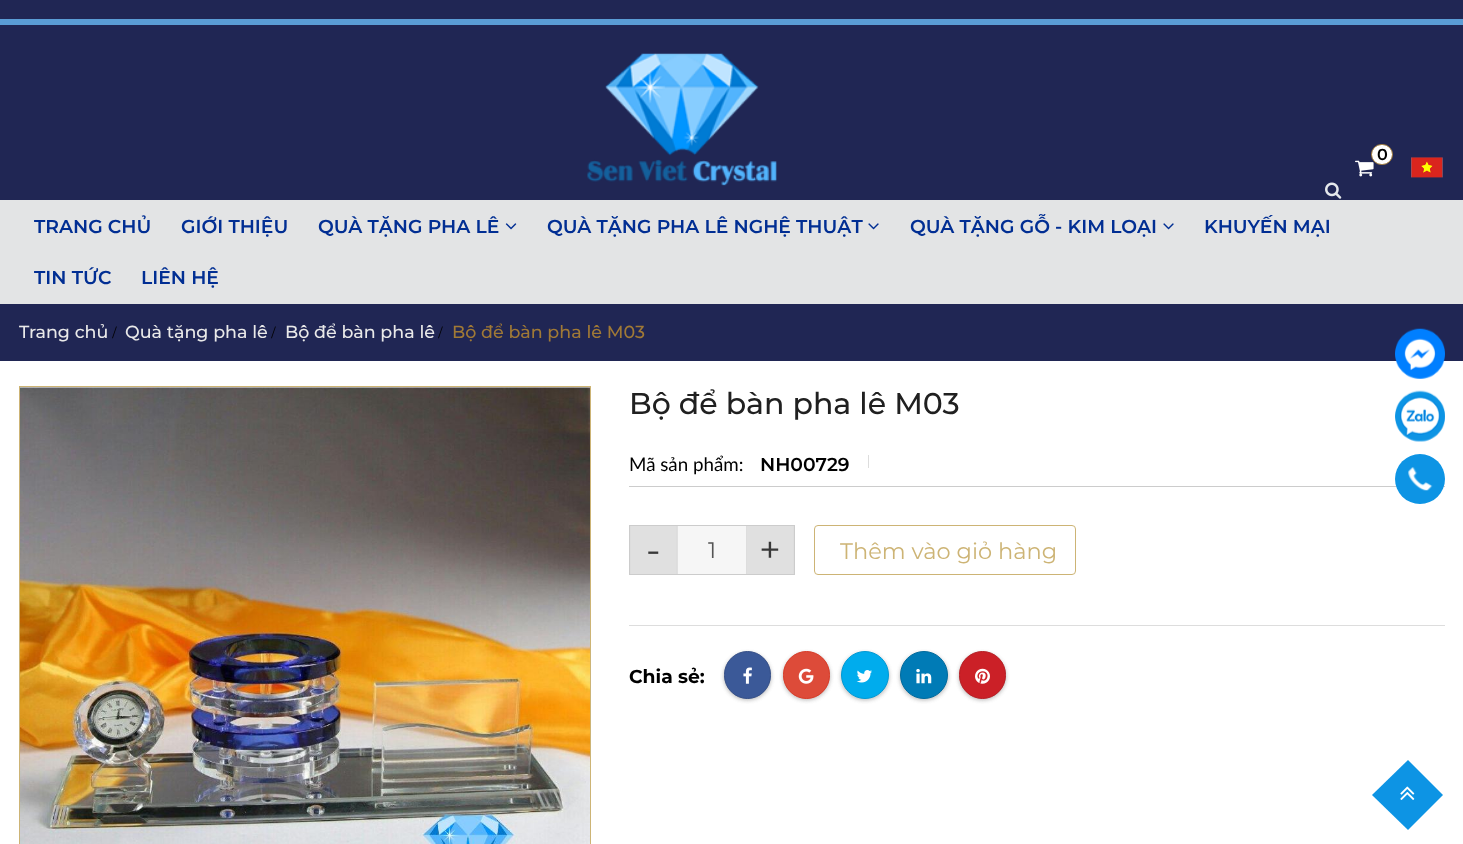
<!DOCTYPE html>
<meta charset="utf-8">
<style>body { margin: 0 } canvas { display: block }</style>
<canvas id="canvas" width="1463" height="844"></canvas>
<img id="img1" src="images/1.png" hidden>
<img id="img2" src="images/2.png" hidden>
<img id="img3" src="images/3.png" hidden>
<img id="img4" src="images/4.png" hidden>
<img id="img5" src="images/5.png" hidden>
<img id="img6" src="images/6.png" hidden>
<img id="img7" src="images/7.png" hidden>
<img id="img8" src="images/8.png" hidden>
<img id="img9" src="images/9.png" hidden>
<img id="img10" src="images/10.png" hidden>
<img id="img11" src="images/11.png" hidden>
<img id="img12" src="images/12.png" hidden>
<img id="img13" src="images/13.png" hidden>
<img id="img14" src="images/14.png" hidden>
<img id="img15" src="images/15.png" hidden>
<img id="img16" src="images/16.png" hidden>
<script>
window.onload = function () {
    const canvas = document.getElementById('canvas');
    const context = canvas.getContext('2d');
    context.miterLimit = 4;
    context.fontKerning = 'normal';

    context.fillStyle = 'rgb(255, 255, 255)';
    context.fillRect(0, 0, 1463, 844);
    context.fillStyle = 'rgb(32, 38, 84)';
    context.fillRect(0, 0, 1463, 200);
    context.fillStyle = 'rgb(90, 156, 213)';
    context.fillRect(0, 19, 1463, 6);
    context.drawImage(document.getElementById('img1'), 587, 53, 190, 133);
    context.drawImage(document.getElementById('img2'), 1355, 160, 19, 17);
    context.fillStyle = 'rgb(255, 255, 255)';
    context.beginPath();
    context.roundRect(1371.5, 144.5, 21, 20, 10);
    context.fill();
    context.strokeStyle = 'rgb(160, 121, 54)';
    context.stroke();
    context.drawImage(document.getElementById('img3'), 1411, 157, 32, 21);
    context.drawImage(document.getElementById('img4'), 1325, 182, 17, 17);
    context.fillStyle = 'rgb(227, 228, 229)';
    context.fillRect(0, 200, 1463, 104);
    context.drawImage(document.getElementById('img5'), 505, 223, 12, 7);
    context.drawImage(document.getElementById('img6'), 868, 223, 11, 7);
    context.drawImage(document.getElementById('img6'), 1163, 223, 11, 7);
    context.fillStyle = 'rgb(32, 38, 84)';
    context.fillRect(0, 304, 1463, 57);
    context.strokeStyle = 'rgb(205, 180, 117)';
    context.strokeRect(19.5, 386.5, 571, 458);
    context.drawImage(document.getElementById('img7'), 20, 387, 570, 457);
    context.fillStyle = 'rgb(204, 204, 204)';
    context.fillRect(629, 486, 816, 1);
    context.fillStyle = 'rgb(221, 221, 221)';
    context.fillRect(868, 455, 1, 13);
    context.fillRect(629, 625, 816, 1);
    context.strokeStyle = 'rgb(204, 204, 204)';
    context.strokeRect(629.5, 525.5, 165, 49);
    context.fillStyle = 'rgb(224, 224, 224)';
    context.fillRect(631, 526, 47, 48);
    context.fillStyle = 'rgb(221, 221, 221)';
    context.fillRect(676, 526, 1, 48);
    context.fillRect(630, 526, 1, 48);
    context.fillStyle = 'rgb(246, 246, 246)';
    context.fillRect(678, 526, 68, 48);
    context.fillStyle = 'rgb(224, 224, 224)';
    context.fillRect(747, 526, 46, 48);
    context.fillStyle = 'rgb(221, 221, 221)';
    context.fillRect(793, 526, 1, 48);
    context.fillRect(746, 526, 1, 48);
    context.beginPath();
    context.roundRect(814.5, 525.5, 261, 49, 3.5);
    context.strokeStyle = 'rgb(205, 180, 117)';
    context.stroke();
    context.fillStyle = 'rgba(0, 0, 0, 0.15)';
    context.filter = 'blur(2px)';
    context.beginPath();
    context.roundRect(724, 653, 47, 47, 23.5);
    context.fill();
    context.filter = 'none';
    context.filter = 'blur(2px)';
    context.beginPath();
    context.roundRect(724, 653, 47, 47, 23.5);
    context.fill();
    context.filter = 'none';
    context.fillStyle = 'rgb(59, 89, 152)';
    context.beginPath();
    context.roundRect(724.5, 651.5, 46, 47, 23);
    context.fill();
    context.strokeStyle = 'rgb(52, 78, 134)';
    context.stroke();
    context.drawImage(document.getElementById('img8'), 743, 667, 9, 17);
    context.fillStyle = 'rgba(0, 0, 0, 0.15)';
    context.filter = 'blur(2px)';
    context.beginPath();
    context.roundRect(783, 653, 47, 47, 23.5);
    context.fill();
    context.filter = 'none';
    context.filter = 'blur(2px)';
    context.beginPath();
    context.roundRect(783, 653, 47, 47, 23.5);
    context.fill();
    context.filter = 'none';
    context.fillStyle = 'rgb(221, 75, 57)';
    context.beginPath();
    context.roundRect(783.5, 651.5, 46, 47, 23);
    context.fill();
    context.strokeStyle = 'rgb(215, 57, 37)';
    context.stroke();
    context.drawImage(document.getElementById('img9'), 798, 668, 16, 16);
    context.fillStyle = 'rgba(0, 0, 0, 0.15)';
    context.filter = 'blur(2px)';
    context.beginPath();
    context.roundRect(841, 653, 48, 47, 23.5);
    context.fill();
    context.filter = 'none';
    context.filter = 'blur(2px)';
    context.beginPath();
    context.roundRect(841, 653, 48, 47, 23.5);
    context.fill();
    context.filter = 'none';
    context.fillStyle = 'rgb(0, 172, 237)';
    context.beginPath();
    context.arc(865, 675, 23.5, 0, 2 * Math.PI);
    context.fill();
    context.strokeStyle = 'rgb(0, 153, 212)';
    context.stroke();
    context.drawImage(document.getElementById('img10'), 856, 670, 16, 13);
    context.fillStyle = 'rgba(0, 0, 0, 0.15)';
    context.filter = 'blur(2px)';
    context.beginPath();
    context.roundRect(900, 653, 48, 47, 23.5);
    context.fill();
    context.filter = 'none';
    context.filter = 'blur(2px)';
    context.beginPath();
    context.roundRect(900, 653, 48, 47, 23.5);
    context.fill();
    context.filter = 'none';
    context.fillStyle = 'rgb(0, 123, 182)';
    context.beginPath();
    context.arc(924, 675, 23.5, 0, 2 * Math.PI);
    context.fill();
    context.strokeStyle = 'rgb(0, 106, 157)';
    context.stroke();
    context.drawImage(document.getElementById('img11'), 916, 669, 16, 15);
    context.fillStyle = 'rgba(0, 0, 0, 0.15)';
    context.filter = 'blur(2px)';
    context.beginPath();
    context.roundRect(959, 653, 47, 47, 23.5);
    context.fill();
    context.filter = 'none';
    context.filter = 'blur(2px)';
    context.beginPath();
    context.roundRect(959, 653, 47, 47, 23.5);
    context.fill();
    context.filter = 'none';
    context.fillStyle = 'rgb(203, 32, 39)';
    context.beginPath();
    context.roundRect(959.5, 651.5, 46, 47, 23);
    context.fill();
    context.strokeStyle = 'rgb(181, 29, 35)';
    context.stroke();
    context.drawImage(document.getElementById('img12'), 975, 668, 15, 16);
    context.drawImage(document.getElementById('img13'), 1395, 328, 50, 51);
    context.drawImage(document.getElementById('img14'), 1395, 390, 50, 52);
    context.fillStyle = 'rgb(13, 148, 228)';
    context.beginPath();
    context.arc(1420, 479, 25, 0, 2 * Math.PI);
    context.fill();
    context.drawImage(document.getElementById('img15'), 1408, 467, 25, 24);
    context.beginPath();
    context.moveTo(1408, 760);
    context.lineTo(1443, 795);
    context.lineTo(1408, 830);
    context.lineTo(1372, 795);
    context.closePath();
    context.fill();
    context.drawImage(document.getElementById('img16'), 1400, 786, 15, 14);
    context.font = '600 16px Montserrat';
    context.fillStyle = 'rgb(0, 0, 0)';
    context.fillText('0', 1377, 160);
    context.font = '600 18.75px Montserrat';
    context.fillStyle = 'rgb(1, 46, 147)';
    context.fillText('TRANG CHỦ', 34, 233);
    context.fillText('GIỚI THIỆU', 181, 233);
    context.fillText('QUÀ TẶNG PHA LÊ', 318, 233);
    context.fillText('QUÀ TẶNG PHA LÊ NGHỆ THUẬT', 547, 233);
    context.fillText('QUÀ TẶNG GỖ - KIM LOẠI', 910, 233);
    context.fillText('KHUYẾN MẠI', 1204, 233);
    context.fillText('TIN TỨC', 34, 284);
    context.fillText('LIÊN HỆ', 141, 284);
    context.font = '500 17.5px Montserrat';
    context.fillStyle = 'rgb(233, 233, 233)';
    context.fillText('Trang chủ', 19, 338);
    context.font = '17.5px Liberation Serif';
    context.fillStyle = 'rgb(0, 0, 0)';
    context.fillText('/', 112, 338);
    context.font = '500 17.5px Montserrat';
    context.fillStyle = 'rgb(233, 233, 233)';
    context.fillText('Quà tặng pha lê', 125, 338);
    context.font = '17.5px Liberation Serif';
    context.fillStyle = 'rgb(0, 0, 0)';
    context.fillText('/', 271, 338);
    context.font = '500 17.5px Montserrat';
    context.fillStyle = 'rgb(233, 233, 233)';
    context.fillText('Bộ để bàn pha lê', 285, 338);
    context.font = '17.5px Liberation Serif';
    context.fillStyle = 'rgb(0, 0, 0)';
    context.fillText('/', 438, 338);
    context.font = '500 17.5px Montserrat';
    context.fillStyle = 'rgb(160, 121, 54)';
    context.fillText('Bộ để bàn pha lê M03', 452, 338);
    context.font = '500 30px Montserrat';
    context.fillStyle = 'rgb(32, 32, 32)';
    context.fillText('Bộ để bàn pha lê M03', 629, 414);
    context.font = '18.75px Lato';
    context.fillStyle = 'rgb(0, 0, 0)';
    context.fillText('Mã sản phẩm:', 629, 471);
    context.font = '600 18.75px Montserrat';
    context.fillText('NH00729', 760, 471);
    context.font = '38px Montserrat';
    context.fillStyle = 'rgb(56, 56, 56)';
    context.fillText('-', 646, 563);
    context.font = '22.5px Montserrat';
    context.fillStyle = 'rgb(85, 85, 85)';
    context.fillText('1', 708, 558);
    context.font = '38px Montserrat';
    context.fillStyle = 'rgb(56, 56, 56)';
    context.fillText('+', 759, 563);
    context.font = '22.5px Montserrat';
    context.fillStyle = 'rgb(205, 180, 117)';
    context.fillText('Thêm vào giỏ hàng', 840, 559);
    context.font = 'bold 18.75px Montserrat';
    context.fillStyle = 'rgb(0, 0, 0)';
    context.fillText('Chia sẻ:', 629, 683);
};
</script>
